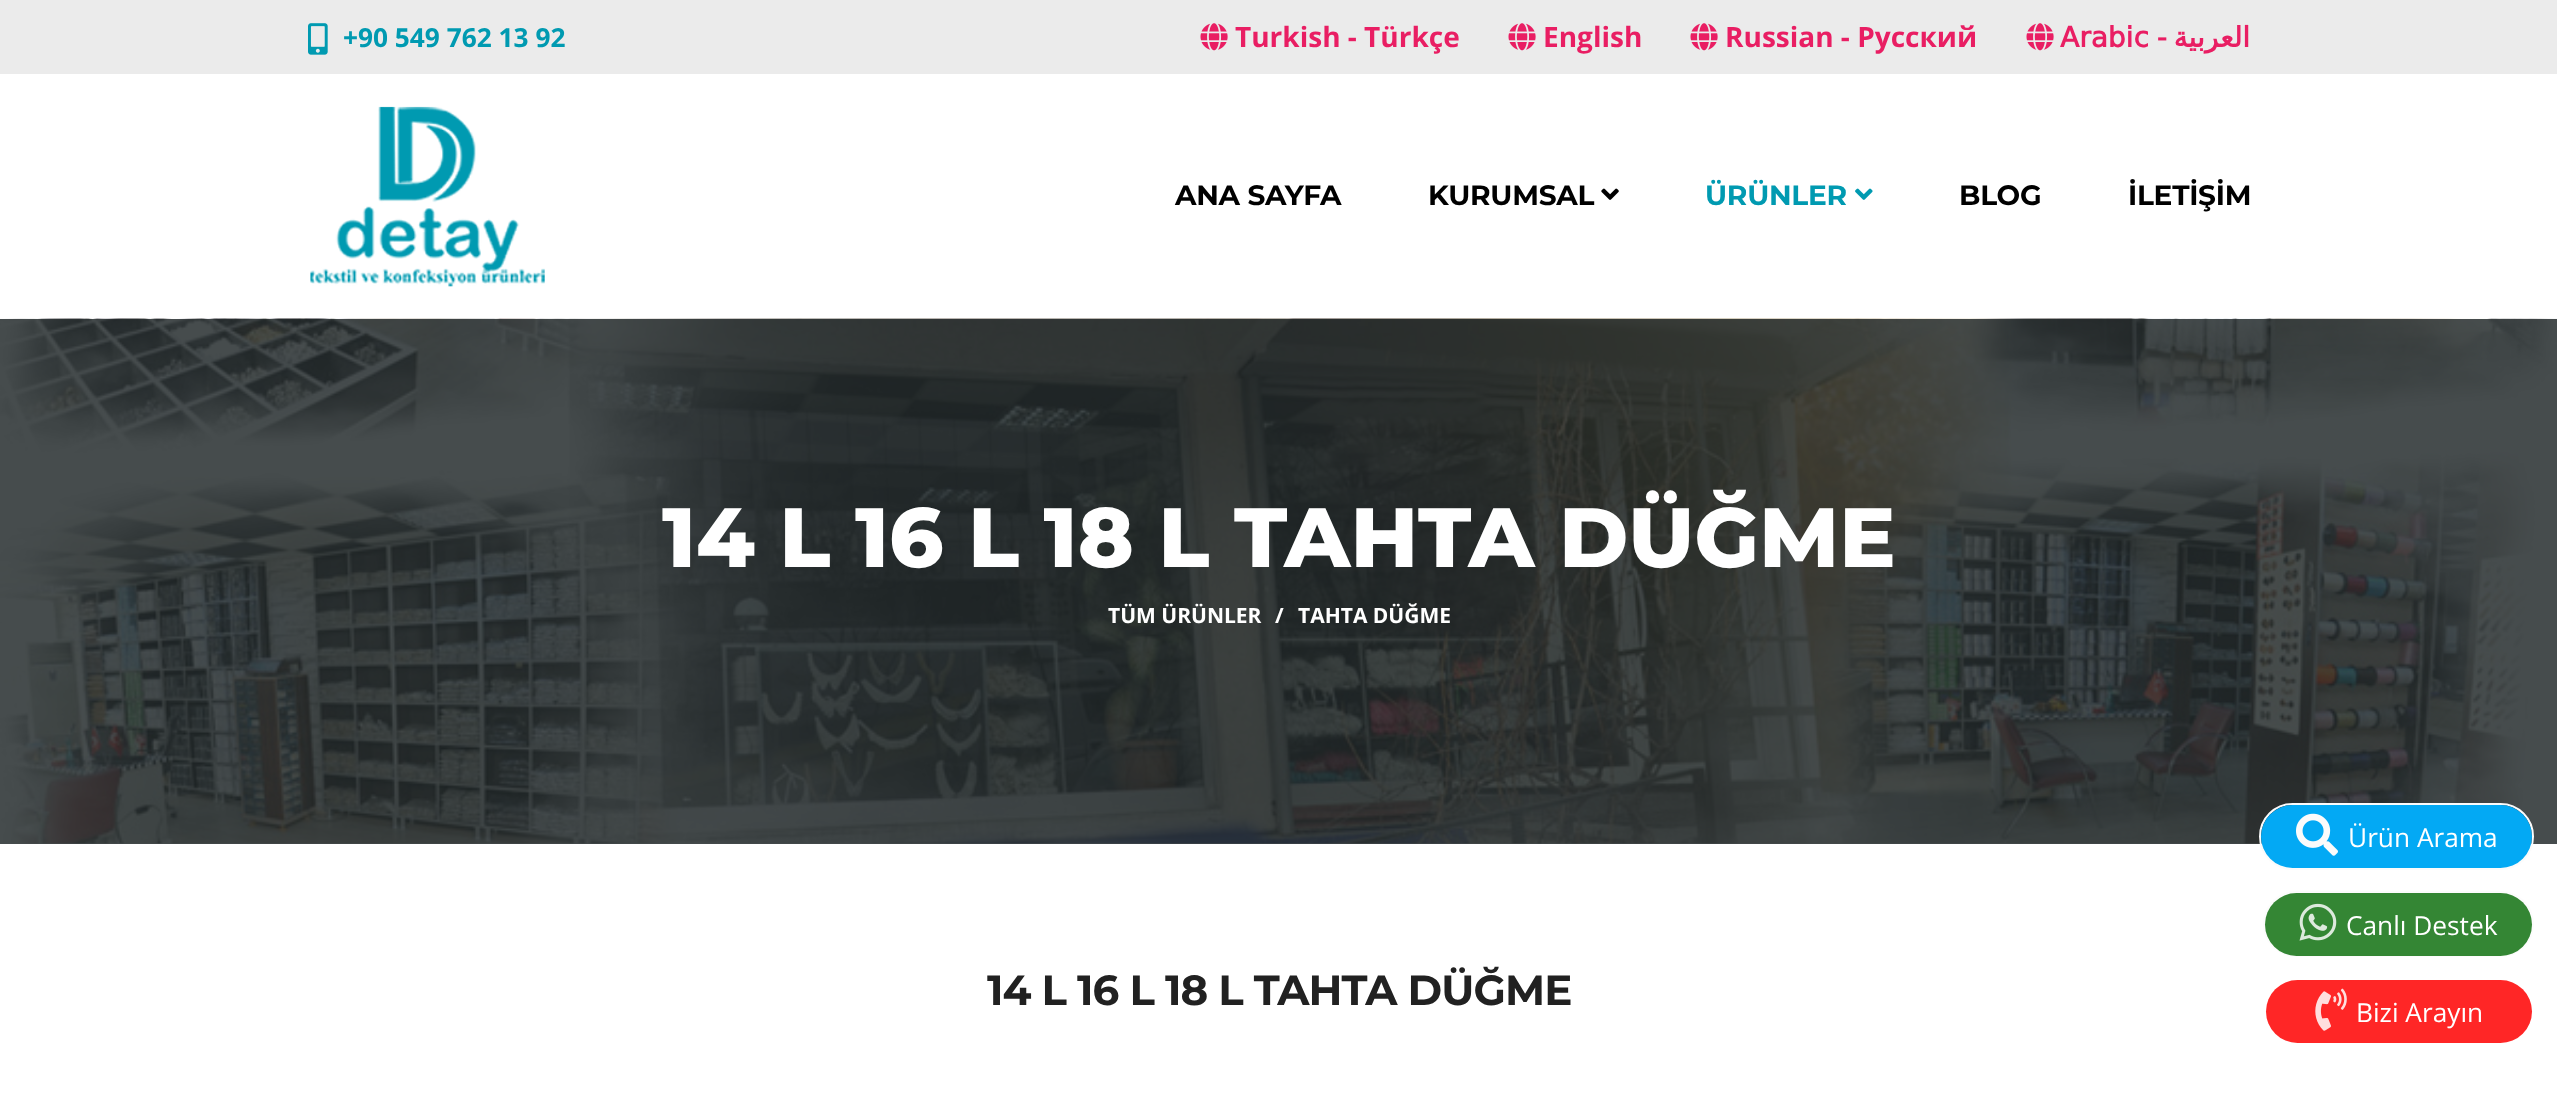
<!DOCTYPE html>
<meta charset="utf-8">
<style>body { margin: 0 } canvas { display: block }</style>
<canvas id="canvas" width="2557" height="1112"></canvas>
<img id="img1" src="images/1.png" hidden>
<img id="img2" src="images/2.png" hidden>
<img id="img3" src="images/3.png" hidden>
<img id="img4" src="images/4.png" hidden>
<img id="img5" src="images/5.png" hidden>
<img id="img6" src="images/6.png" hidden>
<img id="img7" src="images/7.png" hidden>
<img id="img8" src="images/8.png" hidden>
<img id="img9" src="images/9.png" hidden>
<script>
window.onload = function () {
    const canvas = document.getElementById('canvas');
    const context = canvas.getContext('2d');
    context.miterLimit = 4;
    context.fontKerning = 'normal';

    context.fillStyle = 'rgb(255, 255, 255)';
    context.fillRect(0, 0, 2557, 1112);
    context.fillStyle = 'rgb(235, 235, 235)';
    context.fillRect(0, 0, 2557, 74);
    context.drawImage(document.getElementById('img1'), 308, 23, 20, 32);
    context.drawImage(document.getElementById('img2'), 1200, 23, 28, 28);
    context.drawImage(document.getElementById('img2'), 1508, 23, 28, 28);
    context.drawImage(document.getElementById('img2'), 1690, 23, 28, 28);
    context.drawImage(document.getElementById('img2'), 2026, 23, 28, 28);
    context.drawImage(document.getElementById('img3'), 310, 106, 235, 181);
    context.drawImage(document.getElementById('img4'), 1601, 188, 18, 12);
    context.drawImage(document.getElementById('img5'), 1855, 188, 18, 12);
    context.drawImage(document.getElementById('img6'), 0, 318, 2557, 526);
    context.fillStyle = 'rgba(35, 42, 43, 0.84)';
    context.fillRect(0, 319, 2557, 525);
    context.beginPath();
    context.roundRect(2260, 804, 273, 65, 32.5);
    context.strokeStyle = 'rgb(251, 251, 251)';
    context.lineWidth = 2;
    context.stroke();
    context.fillStyle = 'rgb(3, 169, 244)';
    context.beginPath();
    context.roundRect(2261, 805, 271, 63, 31.5);
    context.fill();
    context.drawImage(document.getElementById('img7'), 2296, 813, 42, 43);
    context.beginPath();
    context.roundRect(2264, 892, 269, 64, 32);
    context.strokeStyle = 'rgb(252, 252, 252)';
    context.stroke();
    context.fillStyle = 'rgb(52, 134, 52)';
    context.beginPath();
    context.roundRect(2265, 893, 267, 63, 31.5);
    context.fill();
    context.drawImage(document.getElementById('img8'), 2299, 903, 38, 38);
    context.fillStyle = 'rgb(255, 38, 38)';
    context.beginPath();
    context.roundRect(2266, 980, 266, 63, 31.5);
    context.fill();
    context.drawImage(document.getElementById('img9'), 2315, 988, 32, 43);
    context.font = 'bold 26.25px Open Sans';
    context.fillStyle = 'rgb(0, 154, 177)';
    context.fillText('+90 549 762 13 92', 343, 47);
    context.font = 'bold 28px Open Sans';
    context.fillStyle = 'rgb(233, 30, 99)';
    context.fillText('Turkish - Türkçe', 1235, 47);
    context.fillText('English', 1543, 47);
    context.fillText('Russian - Русский', 1725, 47);
    context.wordSpacing = '-1px';
    context.font = 'bold 28px DejaVu Sans';
    context.fillText('Arabic -', 2060, 47);
    context.wordSpacing = '0px';
    context.direction = 'rtl';
    context.fillText('العربية', 2250, 47);
    context.letterSpacing = '-0.25px';
    context.direction = 'ltr';
    context.font = 'bold 28px Montserrat';
    context.fillStyle = 'rgb(0, 0, 0)';
    context.fillText('ANA SAYFA', 1175, 205);
    context.fillText('KURUMSAL', 1428, 205);
    context.fillStyle = 'rgb(0, 154, 177)';
    context.fillText('ÜRÜNLER', 1705, 205);
    context.fillStyle = 'rgb(0, 0, 0)';
    context.fillText('BLOG', 1959, 205);
    context.fillText('İLETİŞİM', 2128, 205);
    context.letterSpacing = '0px';
    context.font = '800 84px Montserrat';
    context.fillStyle = 'rgb(255, 255, 255)';
    context.fillText('14 L 16 L 18 L TAHTA DÜĞME', 662, 567);
    context.font = 'bold 21px Open Sans';
    context.fillText('TÜM ÜRÜNLER', 1108, 623);
    context.fillText('/', 1275, 623);
    context.fillText('TAHTA DÜĞME', 1298, 623);
    context.letterSpacing = '-0.9px';
    context.font = 'bold 42px Montserrat';
    context.fillStyle = 'rgb(33, 33, 33)';
    context.fillText('14 L 16 L 18 L TAHTA DÜĞME', 987, 1005);
    context.letterSpacing = '0px';
    context.font = '26.25px Open Sans';
    context.fillStyle = 'rgb(255, 255, 255)';
    context.fillText('Ürün Arama', 2348, 847);
    context.fillText('Canlı Destek', 2346, 935);
    context.fillText('Bizi Arayın', 2356, 1022);
};
</script>
